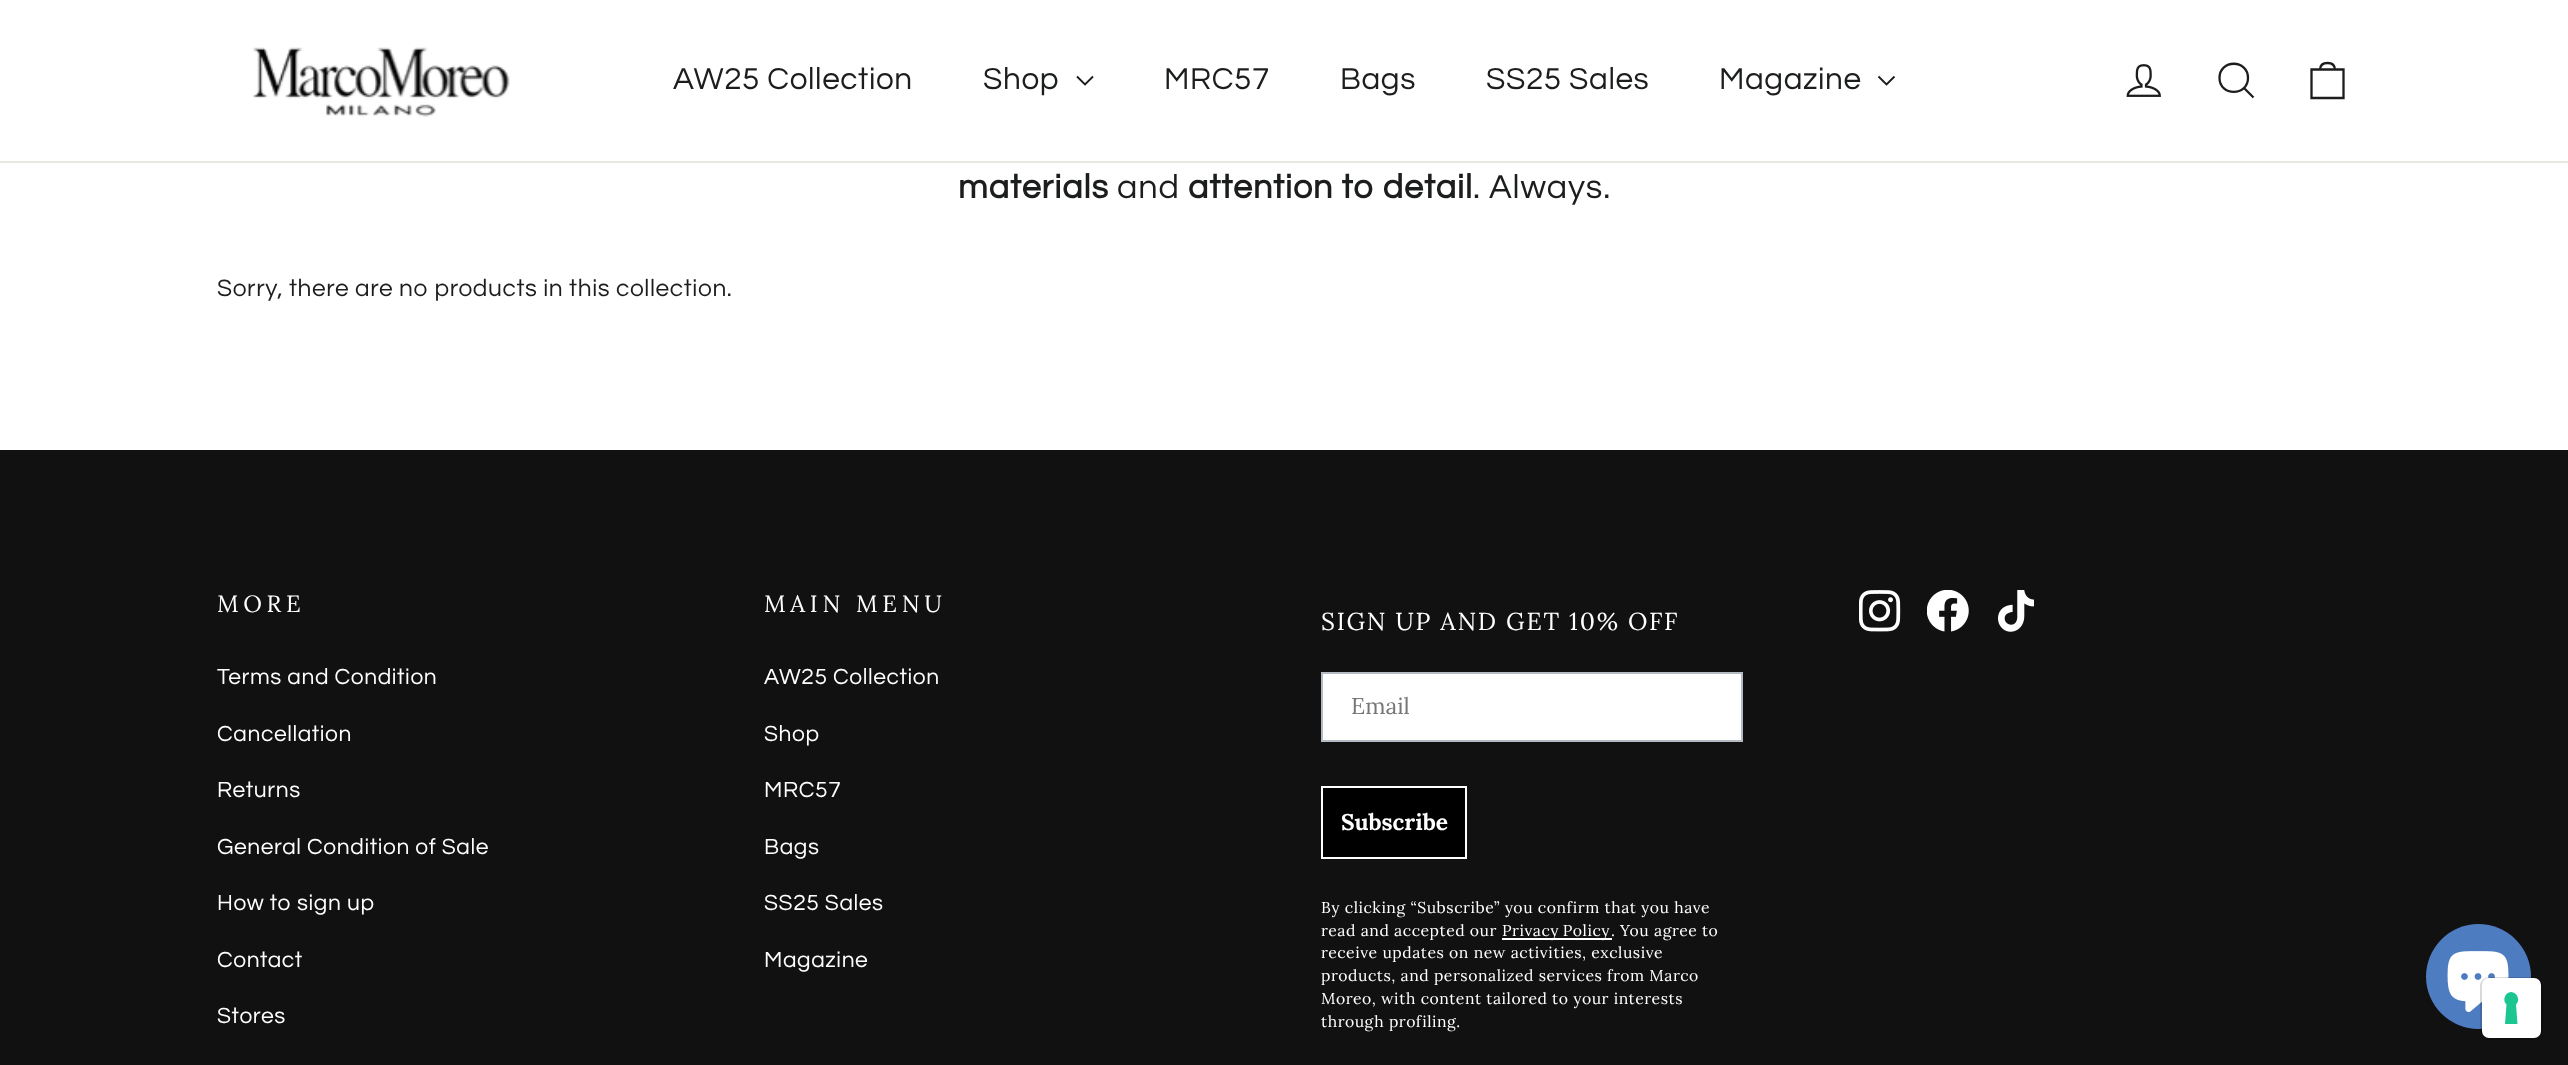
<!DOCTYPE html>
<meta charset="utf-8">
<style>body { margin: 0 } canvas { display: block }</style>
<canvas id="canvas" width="2568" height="1065"></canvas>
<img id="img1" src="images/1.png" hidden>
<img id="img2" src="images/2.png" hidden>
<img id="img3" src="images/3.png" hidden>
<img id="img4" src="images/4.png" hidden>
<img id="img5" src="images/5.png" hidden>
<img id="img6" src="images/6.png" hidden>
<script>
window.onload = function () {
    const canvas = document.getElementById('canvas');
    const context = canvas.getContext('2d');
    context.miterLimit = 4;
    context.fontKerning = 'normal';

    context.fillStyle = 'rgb(255, 255, 255)';
    context.fillRect(0, 0, 2568, 1065);
    context.fillStyle = 'rgb(232, 232, 225)';
    context.fillRect(0, 161, 2568, 2);
    context.drawImage(document.getElementById('img1'), 252, 47, 258, 70);
    context.beginPath();
    context.moveTo(1077, 76.5);
    context.lineTo(1085, 84.5);
    context.lineTo(1093, 76.5);
    context.strokeStyle = 'rgb(28, 29, 29)';
    context.lineWidth = 1.9;
    context.stroke();
    context.beginPath();
    context.moveTo(1878.5, 76.5);
    context.lineTo(1886.5, 84.5);
    context.lineTo(1894.5, 76.5);
    context.stroke();
    context.drawImage(document.getElementById('img2'), 2126, 64, 35, 33);
    context.beginPath();
    context.moveTo(2248, 78);
    context.bezierCurveTo(2248, 96.5, 2219.5, 96.5, 2219.5, 78);
    context.bezierCurveTo(2219.5, 59, 2248, 59, 2248, 78);
    context.closePath();
    context.moveTo(2253.5, 97.5);
    context.lineTo(2244, 88);
    context.lineWidth = 2.3;
    context.stroke();
    context.beginPath();
    context.moveTo(2311.5, 69.5);
    context.lineTo(2343.5, 69.5);
    context.lineTo(2343.5, 98);
    context.lineTo(2311.5, 98);
    context.closePath();
    context.moveTo(2320, 70);
    context.bezierCurveTo(2320, 64.5, 2323.5, 63, 2327.5, 63);
    context.bezierCurveTo(2331.5, 63, 2335, 64.5, 2335, 70);
    context.stroke();
    context.fillStyle = 'rgb(17, 17, 17)';
    context.fillRect(0, 450, 2568, 615);
    context.fillStyle = 'rgb(255, 255, 255)';
    context.beginPath();
    context.rect(1322, 673, 420, 68);
    context.fill();
    context.strokeStyle = 'rgb(180, 187, 195)';
    context.lineWidth = 2;
    context.stroke();
    context.fillStyle = 'rgb(0, 0, 0)';
    context.beginPath();
    context.rect(1322, 787, 144, 71);
    context.fill();
    context.strokeStyle = 'rgb(255, 255, 255)';
    context.stroke();
    context.fillStyle = 'rgb(255, 255, 255)';
    context.fillRect(1502, 938, 110, 2);
    context.drawImage(document.getElementById('img3'), 1859, 590, 42, 42);
    context.drawImage(document.getElementById('img4'), 1927, 590, 42, 42);
    context.drawImage(document.getElementById('img5'), 1998, 590, 36, 42);
    context.fillStyle = 'rgb(78, 124, 192)';
    context.beginPath();
    context.arc(2478.5, 976.5, 52.5, 0, 2 * Math.PI);
    context.fill();
    context.drawImage(document.getElementById('img6'), 2447, 951, 62, 61);
    context.beginPath();
    context.roundRect(2481, 978, 61, 61, 8);
    context.strokeStyle = 'rgba(0, 0, 0, 0.15)';
    context.stroke();
    context.fillStyle = 'rgb(255, 255, 255)';
    context.beginPath();
    context.roundRect(2482, 978, 59, 60, 7);
    context.fill();
    context.fillStyle = 'rgb(28, 198, 145)';
    context.beginPath();
    context.moveTo(2511, 992);
    context.bezierCurveTo(2517.5, 992.5, 2520.5, 1000.5, 2516, 1004.5);
    context.lineTo(2517.5, 1024);
    context.lineTo(2505, 1024);
    context.lineTo(2506.5, 1004.5);
    context.bezierCurveTo(2502, 1000.5, 2505, 992.5, 2511, 992);
    context.closePath();
    context.fill('evenodd');
    context.letterSpacing = '0.6px';
    context.font = '31.5px Questrial';
    context.fillStyle = 'rgb(28, 29, 29)';
    context.fillText('AW25 Collection', 673, 89);
    context.fillText('Shop', 983, 89);
    context.fillText('MRC57', 1164, 89);
    context.fillText('Bags', 1340, 89);
    context.fillText('SS25 Sales', 1486, 89);
    context.fillText('Magazine', 1719, 89);
    context.letterSpacing = '0.9px';
    context.font = 'bold 34.25px Questrial';
    context.fillText('materials', 958, 198);
    context.font = '34.25px Questrial';
    context.fillText('and', 1117, 198);
    context.font = 'bold 34.25px Questrial';
    context.fillText('attention to detail', 1188, 198);
    context.font = '34.25px Questrial';
    context.fillText('. Always.', 1473, 198);
    context.letterSpacing = '0.6px';
    context.font = '24.5px Questrial';
    context.fillText('Sorry, there are no products in this collection.', 217, 296);
    context.letterSpacing = '4.75px';
    context.font = '23.5px Lora';
    context.fillStyle = 'rgb(255, 255, 255)';
    context.fillText('MORE', 217, 612);
    context.letterSpacing = '0.6px';
    context.font = '22.75px Questrial';
    context.fillText('Terms and Condition', 217, 684);
    context.fillText('Cancellation', 217, 741);
    context.fillText('Returns', 217, 797);
    context.fillText('General Condition of Sale', 217, 854);
    context.fillText('How to sign up', 217, 910);
    context.fillText('Contact', 217, 967);
    context.fillText('Stores', 217, 1023);
    context.letterSpacing = '4.75px';
    context.font = '23.5px Lora';
    context.fillText('MAIN MENU', 764, 612);
    context.letterSpacing = '0.6px';
    context.font = '22.75px Questrial';
    context.fillText('AW25 Collection', 764, 684);
    context.fillText('Shop', 764, 741);
    context.fillText('MRC57', 764, 797);
    context.fillText('Bags', 764, 854);
    context.fillText('SS25 Sales', 764, 910);
    context.fillText('Magazine', 764, 967);
    context.letterSpacing = '1.75px';
    context.font = '24.5px Lora';
    context.fillText('SIGN UP AND GET 10% OFF', 1321, 630);
    context.letterSpacing = '0px';
    context.font = '22.75px Lora';
    context.fillStyle = 'rgb(118, 118, 118)';
    context.fillText('Email', 1351, 714);
    context.font = 'bold 22.75px Lora';
    context.fillStyle = 'rgb(255, 255, 255)';
    context.fillText('Subscribe', 1341, 830);
    context.letterSpacing = '0.55px';
    context.font = '15.75px Lora';
    context.fillText('By clicking “Subscribe” you confirm that you have', 1321, 913);
    context.fillText('read and accepted our', 1321, 936);
    context.wordSpacing = '-1px';
    context.fillText('Privacy Policy', 1502, 936);
    context.wordSpacing = '0px';
    context.fillText('. You agree to', 1611, 936);
    context.fillText('receive updates on new activities, exclusive', 1321, 958);
    context.fillText('products, and personalized services from Marco', 1321, 981);
    context.fillText('Moreo, with content tailored to your interests', 1321, 1004);
    context.fillText('through profiling.', 1321, 1027);
};
</script>
